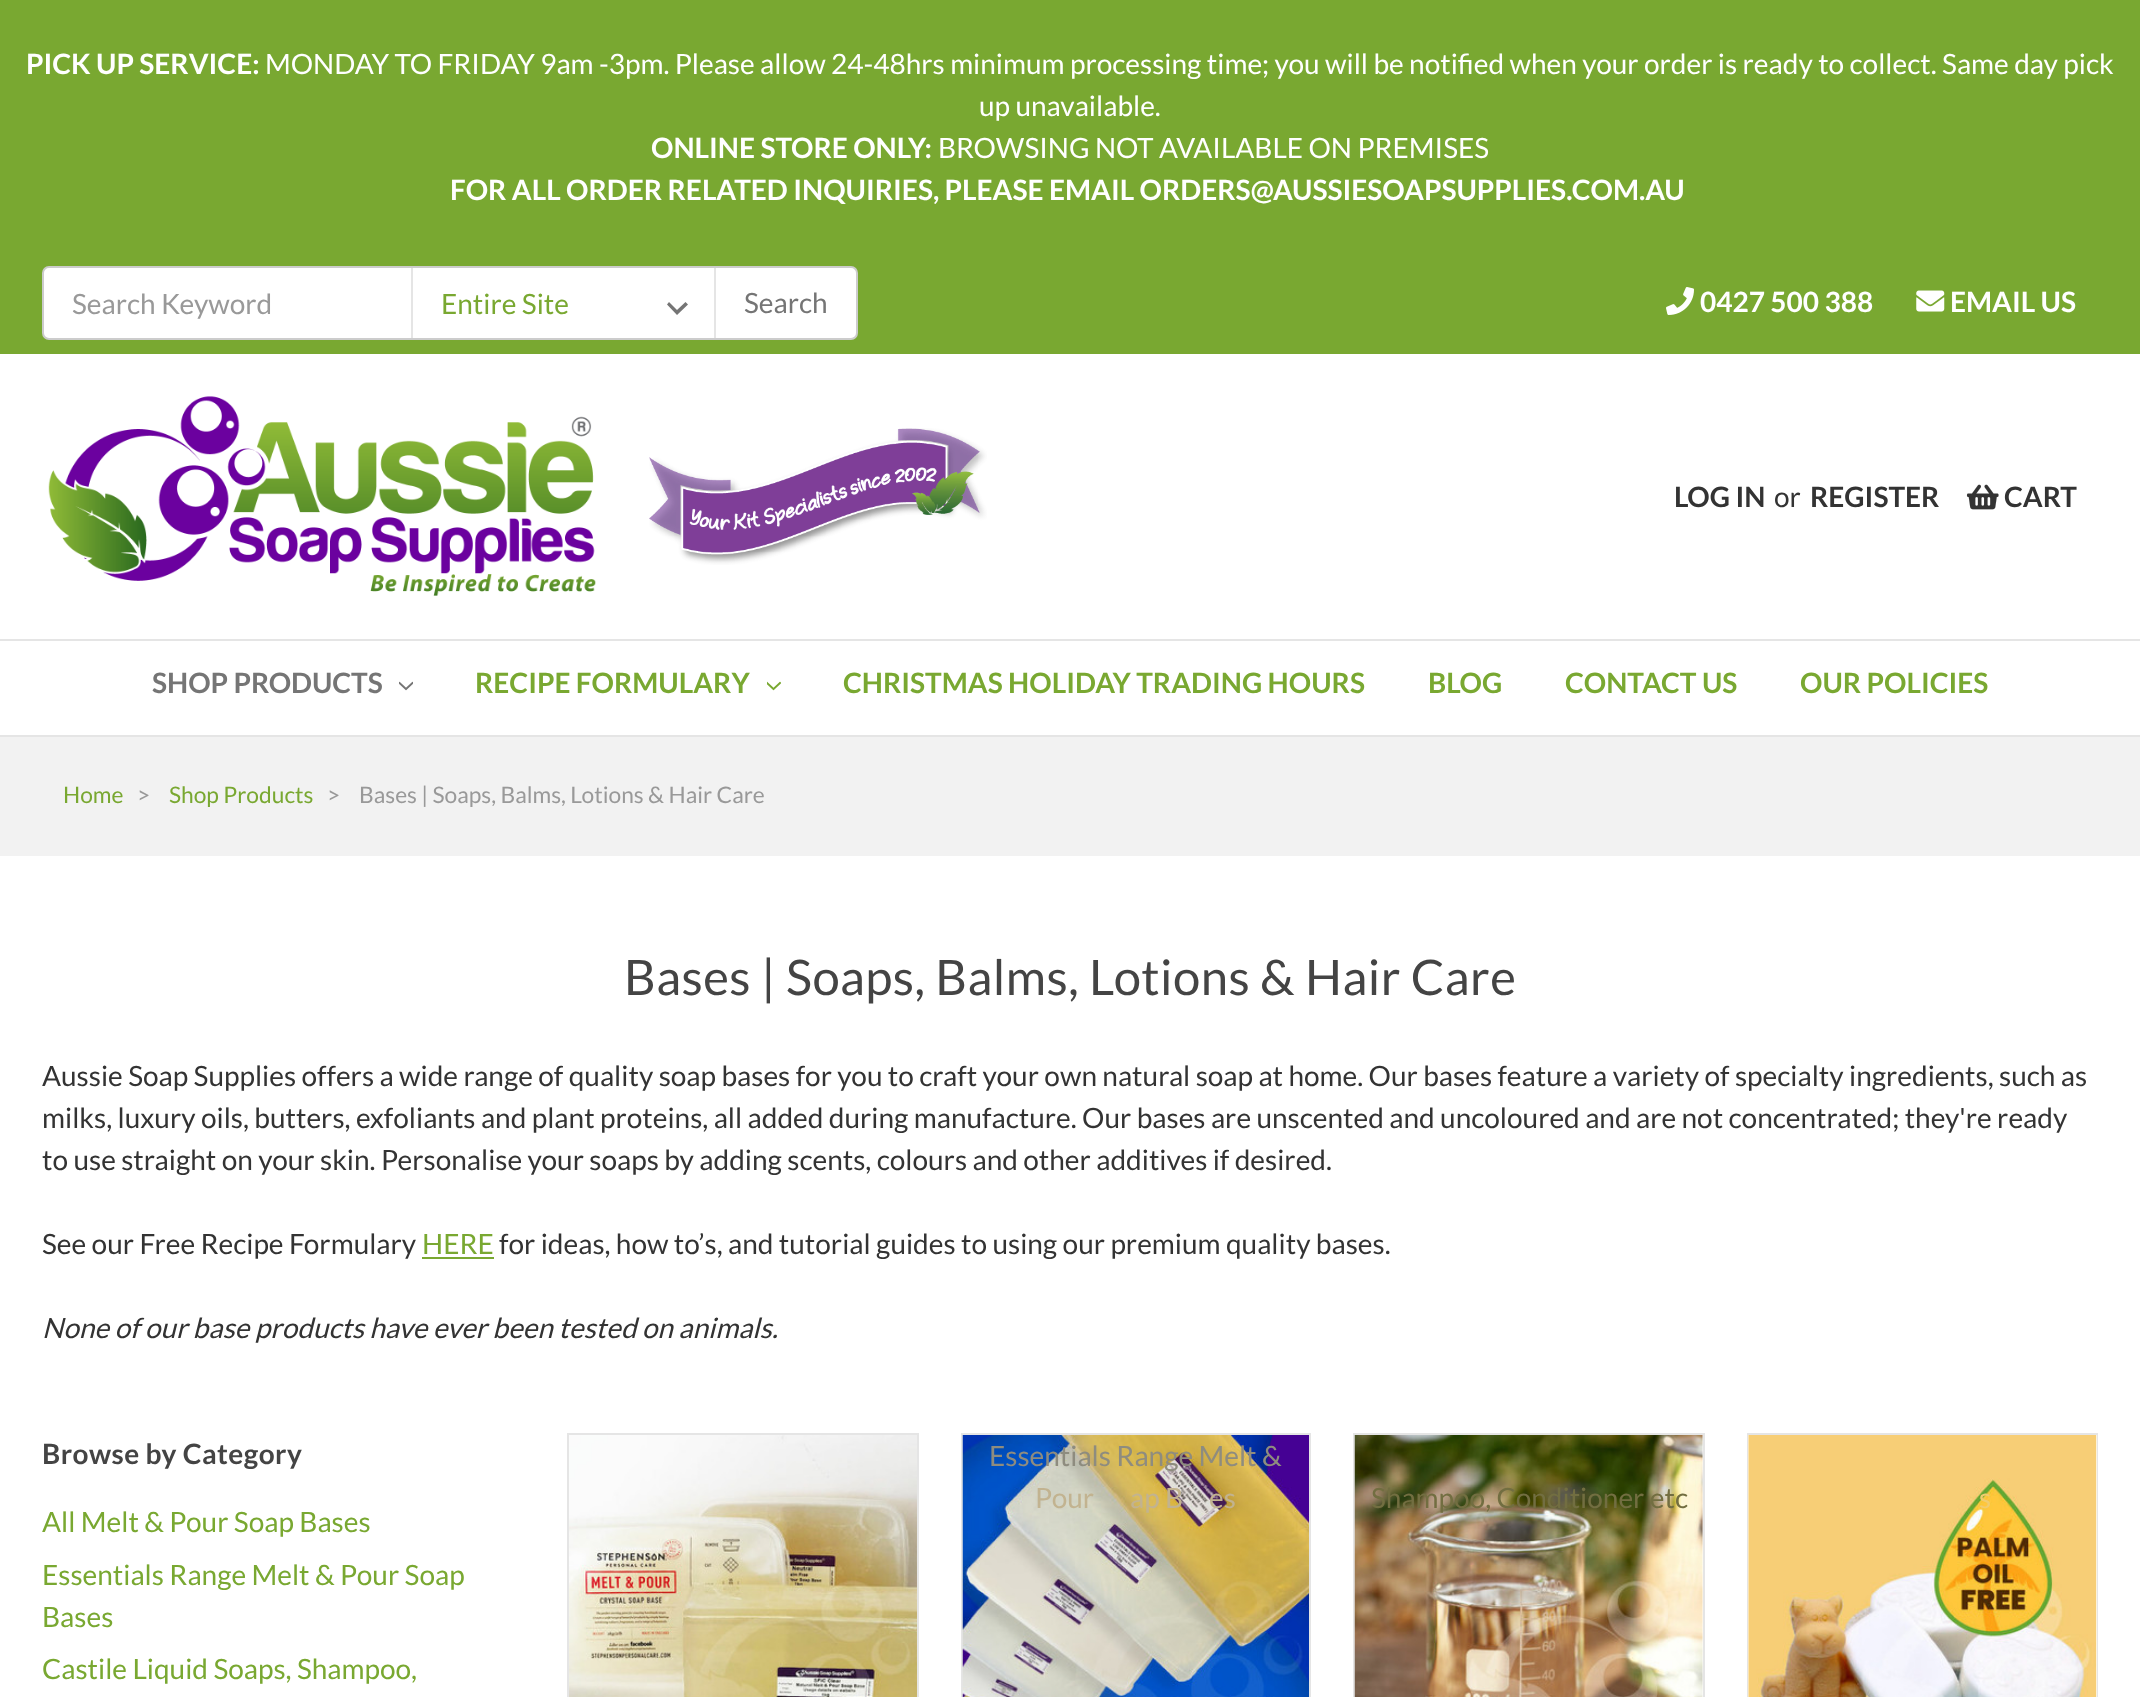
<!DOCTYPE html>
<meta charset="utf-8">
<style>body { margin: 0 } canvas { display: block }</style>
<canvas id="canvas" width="2140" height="1697"></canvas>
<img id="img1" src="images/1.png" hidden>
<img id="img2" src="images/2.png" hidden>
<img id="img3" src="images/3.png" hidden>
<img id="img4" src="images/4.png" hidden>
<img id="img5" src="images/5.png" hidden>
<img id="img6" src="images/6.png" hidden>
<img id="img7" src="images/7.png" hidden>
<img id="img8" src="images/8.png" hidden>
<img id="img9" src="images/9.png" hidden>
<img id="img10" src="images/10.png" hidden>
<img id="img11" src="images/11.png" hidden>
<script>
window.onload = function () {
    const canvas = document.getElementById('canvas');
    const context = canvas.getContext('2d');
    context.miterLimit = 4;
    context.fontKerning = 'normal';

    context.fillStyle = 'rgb(255, 255, 255)';
    context.fillRect(0, 0, 2140, 1697);
    context.fillStyle = 'rgb(121, 168, 49)';
    context.fillRect(0, 0, 2140, 354);
    context.fillStyle = 'rgb(229, 229, 229)';
    context.fillRect(0, 735, 2140, 2);
    context.fillStyle = 'rgb(255, 255, 255)';
    context.beginPath();
    context.roundRect(43, 267, 814, 72, 6);
    context.fill();
    context.strokeStyle = 'rgb(204, 204, 204)';
    context.lineWidth = 2;
    context.stroke();
    context.fillStyle = 'rgb(117, 117, 117)';
    context.beginPath();
    context.moveTo(685.5, 302);
    context.lineTo(677, 310);
    context.lineTo(669, 302);
    context.lineTo(667, 304.5);
    context.lineTo(677, 315);
    context.lineTo(688, 304.5);
    context.closePath();
    context.fill();
    context.fillStyle = 'rgb(229, 229, 229)';
    context.fillRect(411, 268, 2, 70);
    context.fillRect(714, 268, 2, 70);
    context.drawImage(document.getElementById('img1'), 1666, 287, 28, 28);
    context.drawImage(document.getElementById('img2'), 1916, 290, 29, 22);
    context.drawImage(document.getElementById('img3'), 48, 396, 548, 200);
    context.drawImage(document.getElementById('img4'), 649, 428, 338, 137);
    context.drawImage(document.getElementById('img5'), 1966, 484, 33, 26);
    context.fillRect(0, 639, 2140, 2);
    context.drawImage(document.getElementById('img6'), 399, 681, 14, 10);
    context.drawImage(document.getElementById('img7'), 767, 681, 14, 10);
    context.fillStyle = 'rgb(242, 242, 242)';
    context.fillRect(0, 737, 2140, 119);
    context.fillStyle = 'rgb(121, 168, 49)';
    context.fillRect(422, 1257, 72, 2);
    context.strokeStyle = 'rgb(229, 229, 229)';
    context.strokeRect(568, 1434, 350, 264);
    context.drawImage(document.getElementById('img8'), 569, 1435, 348, 262);
    context.strokeRect(962, 1434, 348, 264);
    context.drawImage(document.getElementById('img9'), 962, 1435, 347, 262);
    context.strokeRect(1354, 1434, 350, 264);
    context.drawImage(document.getElementById('img10'), 1354, 1435, 349, 262);
    context.strokeRect(1748, 1434, 349, 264);
    context.fillStyle = 'rgb(255, 255, 255)';
    context.fillRect(1748, 1435, 349, 262);
    context.drawImage(document.getElementById('img11'), 1748, 1435, 349, 262);
    context.font = 'bold 28px Lato';
    context.fillText('PICK UP SERVICE:', 26, 74);
    context.font = '28px Lato';
    context.fillText('MONDAY TO FRIDAY 9am -3pm. Please allow 24-48hrs minimum processing time; you will be notified when your order is ready to collect. Same day pick', 265, 74);
    context.fillText('up unavailable.', 979, 116);
    context.font = 'bold 28px Lato';
    context.fillText('ONLINE STORE ONLY:', 651, 158);
    context.font = '28px Lato';
    context.fillText('BROWSING NOT AVAILABLE ON PREMISES', 938, 158);
    context.font = 'bold 28px Lato';
    context.fillText('FOR ALL ORDER RELATED INQUIRIES, PLEASE EMAIL ORDERS@AUSSIESOAPSUPPLIES.COM.AU', 450, 200);
    context.font = '28px Lato';
    context.fillStyle = 'rgb(153, 153, 153)';
    context.fillText('Search Keyword', 72, 314);
    context.fillStyle = 'rgb(121, 168, 49)';
    context.fillText('Entire Site', 441, 314);
    context.fillStyle = 'rgb(117, 117, 117)';
    context.fillText('Search', 744, 313);
    context.font = 'bold 28px Lato';
    context.fillStyle = 'rgb(255, 255, 255)';
    context.fillText('0427 500 388', 1700, 312);
    context.fillText('EMAIL US', 1950, 312);
    context.fillStyle = 'rgb(51, 51, 51)';
    context.fillText('LOG IN', 1674, 507);
    context.font = '28px Lato';
    context.fillText('or', 1774, 507);
    context.font = 'bold 28px Lato';
    context.fillText('REGISTER', 1810, 507);
    context.fillText('CART', 2004, 507);
    context.fillStyle = 'rgb(117, 117, 117)';
    context.fillText('SHOP PRODUCTS', 152, 693);
    context.fillStyle = 'rgb(121, 168, 49)';
    context.fillText('RECIPE FORMULARY', 475, 693);
    context.fillText('CHRISTMAS HOLIDAY TRADING HOURS', 843, 693);
    context.fillText('BLOG', 1428, 693);
    context.fillText('CONTACT US', 1565, 693);
    context.fillText('OUR POLICIES', 1800, 693);
    context.font = '22.75px Lato';
    context.fillText('Home', 63, 803);
    context.fillStyle = 'rgb(153, 153, 153)';
    context.fillText('>', 137, 803);
    context.fillStyle = 'rgb(121, 168, 49)';
    context.fillText('Shop Products', 169, 803);
    context.fillStyle = 'rgb(153, 153, 153)';
    context.fillText('>', 327, 803);
    context.fillText('Bases | Soaps, Balms, Lotions & Hair Care', 359, 803);
    context.letterSpacing = '0.45px';
    context.font = '49px Lato';
    context.fillStyle = 'rgb(68, 68, 68)';
    context.fillText('Bases | Soaps, Balms, Lotions & Hair Care', 624, 995);
    context.letterSpacing = '0px';
    context.font = '28px Lato';
    context.fillStyle = 'rgb(51, 51, 51)';
    context.fillText('Aussie Soap Supplies offers a wide range of quality soap bases for you to craft your own natural soap at home. Our bases feature a variety of specialty ingredients, such as', 42, 1086);
    context.fillText('milks, luxury oils, butters, exfoliants and plant proteins, all added during manufacture. Our bases are unscented and uncoloured and are not concentrated; they\'re ready', 42, 1128);
    context.fillText('to use straight on your skin. Personalise your soaps by adding scents, colours and other additives if desired.', 42, 1170);
    context.fillText('See our Free Recipe Formulary', 42, 1254);
    context.fillStyle = 'rgb(121, 168, 49)';
    context.fillText('HERE', 422, 1254);
    context.fillStyle = 'rgb(51, 51, 51)';
    context.fillText('for ideas, how to’s, and tutorial guides to using our premium quality bases.', 499, 1254);
    context.font = 'italic 28px Lato';
    context.fillText('None of our base products have ever been tested on animals.', 42, 1338);
    context.letterSpacing = '0.45px';
    context.font = 'bold 28px Lato';
    context.fillStyle = 'rgb(68, 68, 68)';
    context.fillText('Browse by Category', 42, 1464);
    context.letterSpacing = '0px';
    context.font = '28px Lato';
    context.fillStyle = 'rgb(121, 168, 49)';
    context.fillText('All Melt & Pour Soap Bases', 42, 1532);
    context.fillText('Essentials Range Melt & Pour Soap', 42, 1585);
    context.fillText('Bases', 42, 1627);
    context.fillText('Castile Liquid Soaps, Shampoo,', 42, 1679);
    context.fillStyle = 'rgb(142, 140, 127)';
    context.fillText('Essentials Range Melt &', 989, 1466);
    context.fillStyle = 'rgb(194, 179, 144)';
    context.fillText('Pour', 1035, 1508);
    context.fillText('ap B', 1130, 1508);
    context.fillText('es', 1209, 1508);
    context.fillStyle = 'rgb(114, 110, 65)';
    context.fillText('Shampoo, Conditioner etc', 1371, 1508);
    context.fillStyle = 'rgb(241, 204, 111)';
    context.fillText('s', 1979, 1508);
};
</script>
